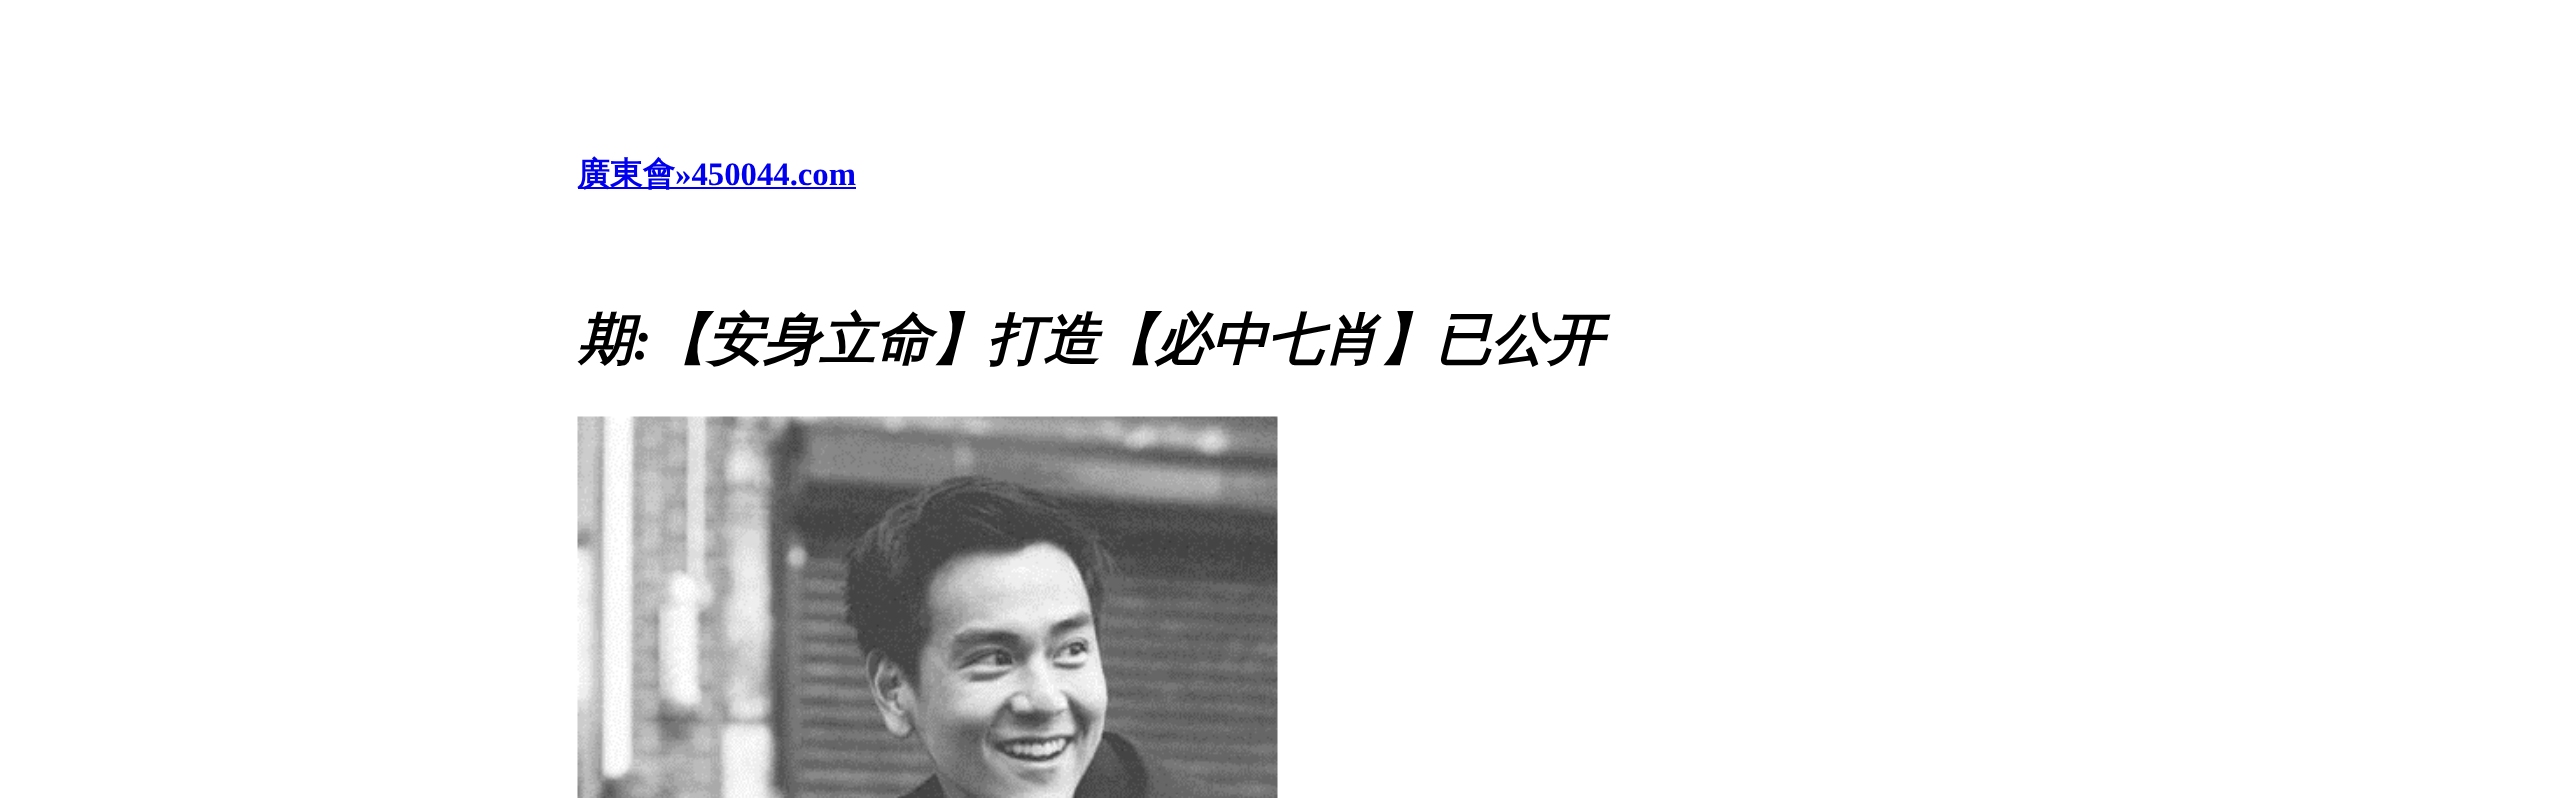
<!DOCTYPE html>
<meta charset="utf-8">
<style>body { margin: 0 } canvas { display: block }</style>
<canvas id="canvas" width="2552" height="798"></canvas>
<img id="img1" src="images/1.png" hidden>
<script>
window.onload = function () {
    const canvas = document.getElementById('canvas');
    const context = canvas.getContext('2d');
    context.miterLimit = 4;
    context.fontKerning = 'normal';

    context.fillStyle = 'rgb(255, 255, 255)';
    context.fillRect(0, 0, 2552, 798);
    context.fillStyle = 'rgb(0, 0, 238)';
    context.fillRect(578, 187, 278, 2);
    context.drawImage(document.getElementById('img1'), 577, 416, 701, 382);
    context.font = 'bold 32.75px WenQuanYi Zen Hei';
    context.fillText('廣東會', 577, 185);
    context.font = 'bold 32.75px Liberation Serif';
    context.fillText('»450044.com', 675, 185);
    context.font = 'italic bold 56px WenQuanYi Zen Hei';
    context.fillStyle = 'rgb(0, 0, 0)';
    context.fillText('期', 577, 359);
    context.font = 'italic bold 56px Liberation Serif';
    context.fillText(':', 633, 359);
    context.font = 'italic bold 56px WenQuanYi Zen Hei';
    context.fillText('【安身立命】打造【必中七肖】已公开', 651, 359);
};
</script>
